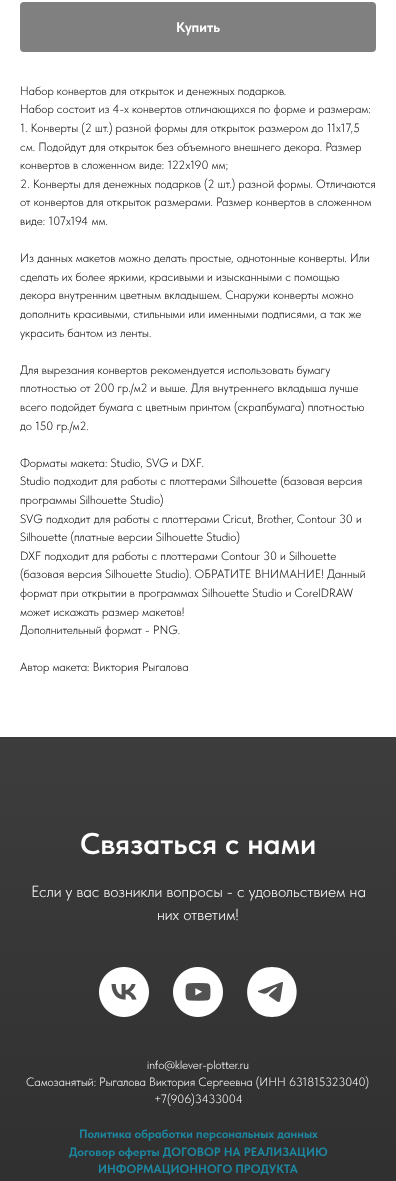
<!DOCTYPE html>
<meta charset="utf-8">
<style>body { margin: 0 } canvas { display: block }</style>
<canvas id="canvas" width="396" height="1181"></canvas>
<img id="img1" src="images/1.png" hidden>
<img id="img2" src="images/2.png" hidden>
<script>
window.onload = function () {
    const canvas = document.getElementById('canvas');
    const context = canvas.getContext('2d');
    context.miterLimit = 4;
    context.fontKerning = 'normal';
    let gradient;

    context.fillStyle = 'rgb(255, 255, 255)';
    context.fillRect(0, 0, 396, 1181);
    context.fillStyle = 'rgb(128, 128, 128)';
    context.beginPath();
    context.roundRect(20, 2, 356, 50, 4);
    context.fill();
    gradient = context.createLinearGradient(198, 0, 198, 1181);
    gradient.addColorStop(0, 'rgb(82, 82, 82)');
    gradient.addColorStop(1, 'rgb(48, 48, 48)');
    context.fillStyle = gradient;
    context.fillRect(0, 737, 396, 444);
    context.fillStyle = 'rgb(82, 82, 82)';
    context.beginPath();
    context.roundRect(104, 972, 40, 40, 16);
    context.fill();
    context.drawImage(document.getElementById('img1'), 99, 967, 50, 50);
    context.beginPath();
    context.roundRect(178, 972, 40, 40, 16);
    context.fill();
    context.drawImage(document.getElementById('img2'), 173, 967, 50, 50);
    context.beginPath();
    context.roundRect(252, 972, 40, 40, 16);
    context.fill();
    context.fillStyle = 'rgb(255, 255, 255)';
    context.beginPath();
    context.moveTo(272, 1017);
    context.bezierCurveTo(305, 1017, 305, 967, 272, 967);
    context.bezierCurveTo(239, 967, 239, 1017, 272, 1017);
    context.closePath();
    context.moveTo(283, 983);
    context.bezierCurveTo(283, 982, 283, 982, 282, 982);
    context.lineTo(258, 991);
    context.lineTo(258, 992);
    context.lineTo(261, 993);
    context.bezierCurveTo(268, 996, 270, 989, 276, 987);
    context.lineTo(277, 987);
    context.bezierCurveTo(278, 988, 268, 994, 269, 996);
    context.lineTo(275, 1000);
    context.bezierCurveTo(280, 1004, 280, 1002, 281, 996);
    context.closePath();
    context.fill('evenodd');
    context.font = 'bold 14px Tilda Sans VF';
    context.fillText('Купить', 176, 32);
    context.font = '300 12px Tilda Sans VF';
    context.fillStyle = 'rgb(0, 0, 0)';
    context.fillText('Набор конвертов для открыток и денежных подарков.', 20, 95);
    context.fillText('Набор состоит из 4-х конвертов отличающихся по форме и размерам:', 20, 113);
    context.fillText('1. Конверты (2 шт.) разной формы для открыток размером до 11х17,5', 20, 132);
    context.fillText('см. Подойдут для открыток без объемного внешнего декора. Размер', 20, 151);
    context.fillText('конвертов в сложенном виде: 122х190 мм;', 20, 169);
    context.fillText('2. Конверты для денежных подарков (2 шт.) разной формы. Отличаются', 20, 188);
    context.fillText('от конвертов для открыток размерами. Размер конвертов в сложенном', 20, 206);
    context.fillText('виде: 107х194 мм.', 20, 225);
    context.fillText('Из данных макетов можно делать простые, однотонные конверты. Или', 20, 262);
    context.fillText('сделать их более яркими, красивыми и изысканными с помощью', 20, 281);
    context.fillText('декора внутренним цветным вкладышем. Снаружи конверты можно', 20, 299);
    context.fillText('дополнить красивыми, стильными или именными подписями, а так же', 20, 318);
    context.fillText('украсить бантом из ленты.', 20, 337);
    context.fillText('Для вырезания конвертов рекомендуется использовать бумагу', 20, 374);
    context.fillText('плотностью от 200 гр./м2 и выше. Для внутреннего вкладыша лучше', 20, 392);
    context.fillText('всего подойдет бумага с цветным принтом (скрапбумага) плотностью', 20, 411);
    context.fillText('до 150 гр./м2.', 20, 430);
    context.fillText('Форматы макета: Studio, SVG и DXF.', 20, 467);
    context.fillText('Studio подходит для работы с плоттерами Silhouette (базовая версия', 20, 485);
    context.fillText('программы Silhouette Studio)', 20, 504);
    context.fillText('SVG подходит для работы с плоттерами Cricut, Brother, Contour 30 и', 20, 523);
    context.fillText('Silhouette (платные версии Silhouette Studio)', 20, 541);
    context.fillText('DXF подходит для работы с плоттерами Contour 30 и Silhouette', 20, 560);
    context.fillText('(базовая версия Silhouette Studio). ОБРАТИТЕ ВНИМАНИЕ! Данный', 20, 578);
    context.fillText('формат при открытии в программах Silhouette Studio и CorelDRAW', 20, 597);
    context.fillText('может искажать размер макетов!', 20, 616);
    context.fillText('Дополнительный формат - PNG.', 20, 634);
    context.fillText('Автор макета: Виктория Рыгалова', 20, 671);
    context.font = '600 30px Tilda Sans VF';
    context.fillStyle = 'rgb(255, 255, 255)';
    context.fillText('Связаться с нами', 80, 854);
    context.font = '300 16px Tilda Sans VF';
    context.fillText('Если у вас возникли вопросы - с удовольствием на', 31, 897);
    context.fillText('них ответим!', 157, 920);
    context.font = '300 12px Tilda Sans VF';
    context.fillText('info@klever-plotter.ru', 147, 1069);
    context.fillText('Cамозанятый: Рыгалова Виктория Сергеевна (ИНН 631815323040)', 26, 1086);
    context.fillText('+7(906)3433004', 154, 1103);
    context.font = 'bold 12px Tilda Sans VF';
    context.fillStyle = 'rgb(29, 135, 161)';
    context.fillText('Политика обработки персональных данных', 79, 1138);
    context.fillText('Договор оферты ДОГОВОР НА РЕАЛИЗАЦИЮ', 69, 1156);
    context.fillText('ИНФОРМАЦИОННОГО ПРОДУКТА', 98, 1173);
};
</script>
